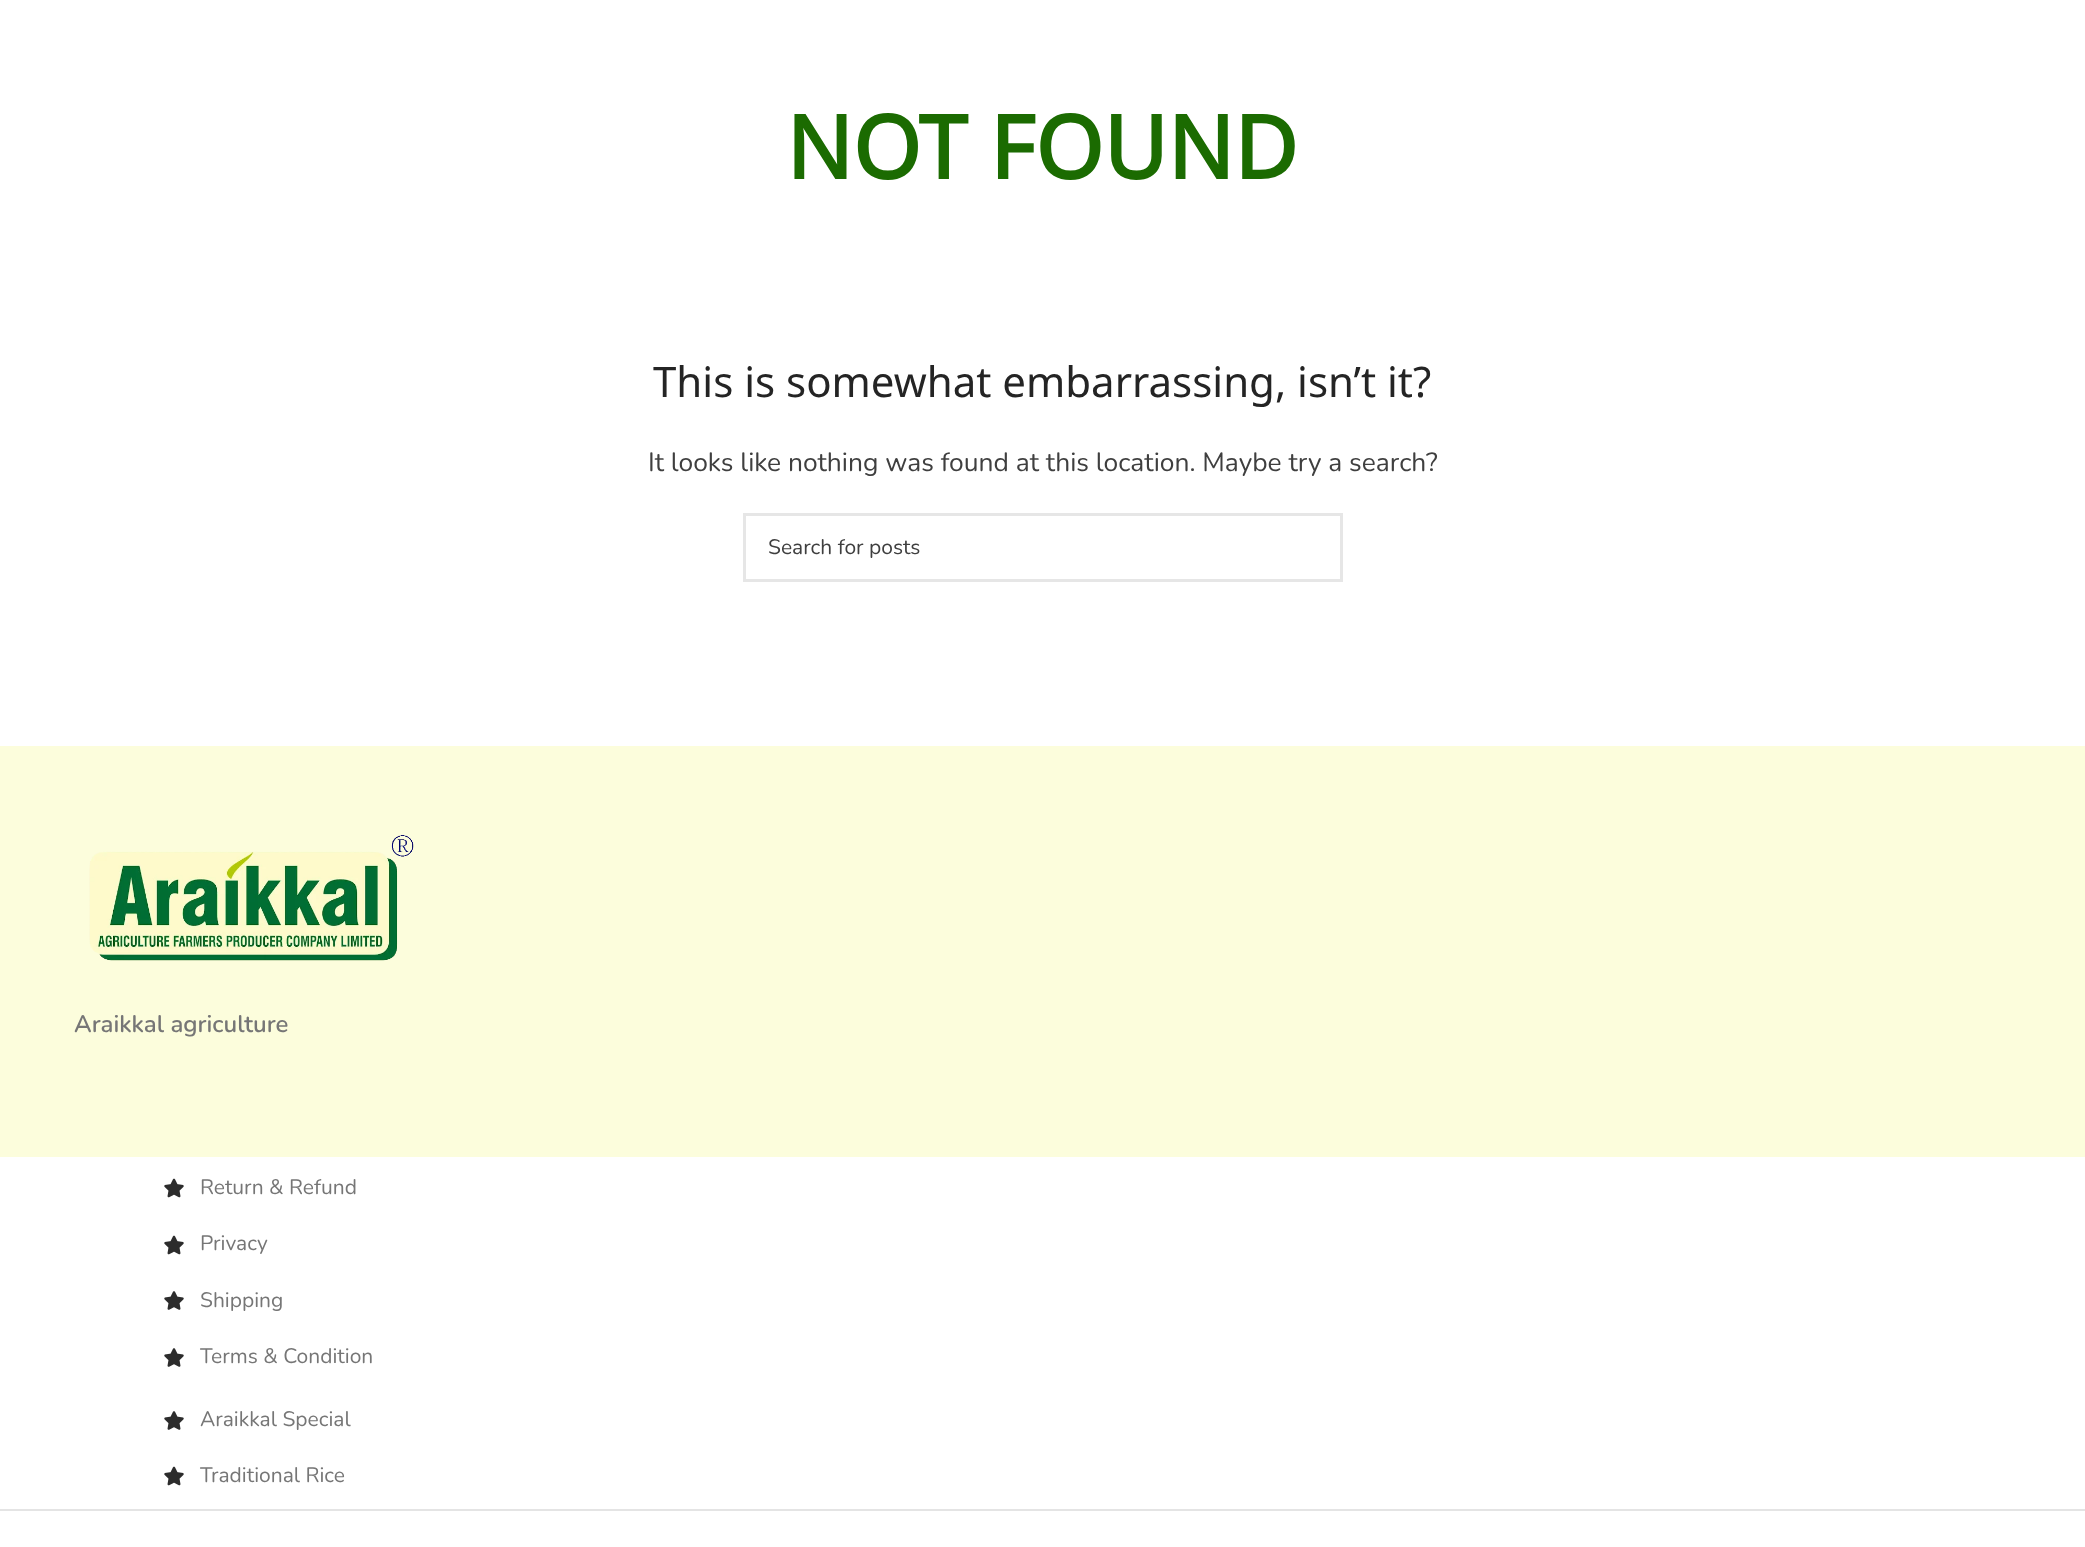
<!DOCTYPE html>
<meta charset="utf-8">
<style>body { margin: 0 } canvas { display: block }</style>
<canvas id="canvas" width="2085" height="1547"></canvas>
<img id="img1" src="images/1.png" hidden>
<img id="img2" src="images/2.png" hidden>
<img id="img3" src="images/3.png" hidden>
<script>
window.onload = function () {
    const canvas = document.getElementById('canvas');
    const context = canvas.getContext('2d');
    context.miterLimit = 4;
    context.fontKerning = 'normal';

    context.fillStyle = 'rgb(255, 255, 255)';
    context.fillRect(0, 0, 2085, 1547);
    context.strokeStyle = 'rgb(230, 230, 230)';
    context.lineWidth = 3;
    context.strokeRect(744.5, 514.5, 597, 66);
    context.fillStyle = 'rgb(252, 253, 220)';
    context.fillRect(0, 746, 2085, 411);
    context.drawImage(document.getElementById('img1'), 89, 835, 325, 126);
    context.drawImage(document.getElementById('img2'), 164, 1178, 20, 20);
    context.drawImage(document.getElementById('img2'), 164, 1235, 20, 20);
    context.drawImage(document.getElementById('img3'), 164, 1291, 20, 19);
    context.drawImage(document.getElementById('img3'), 164, 1348, 20, 19);
    context.drawImage(document.getElementById('img3'), 164, 1411, 20, 19);
    context.drawImage(document.getElementById('img2'), 164, 1466, 20, 20);
    context.fillStyle = 'rgb(228, 228, 228)';
    context.fillRect(0, 1509, 2085, 2);
    context.font = 'bold 87.5px Noto Sans Hanunoo';
    context.fillStyle = 'rgb(27, 107, 1)';
    context.fillText('NOT FOUND', 786, 179);
    context.font = '42px Noto Sans Hanunoo';
    context.fillStyle = 'rgb(36, 36, 36)';
    context.fillText('This is somewhat embarrassing, isn’t it?', 653, 397);
    context.font = '26.4px Nunito';
    context.fillStyle = 'rgb(63, 63, 63)';
    context.fillText('It looks like nothing was found at this location. Maybe try a search?', 648, 471);
    context.font = '21px Nunito';
    context.fillText('Search for posts', 768, 554);
    context.font = '600 24px Nunito';
    context.fillStyle = 'rgb(118, 118, 118)';
    context.fillText('Araikkal agriculture', 74, 1032);
    context.font = '21px Nunito';
    context.fillText('Return & Refund', 200, 1194);
    context.fillText('Privacy', 200, 1250);
    context.fillText('Shipping', 200, 1307);
    context.fillText('Terms & Condition', 200, 1363);
    context.fillText('Araikkal Special', 200, 1426);
    context.fillText('Traditional Rice', 200, 1482);
};
</script>
